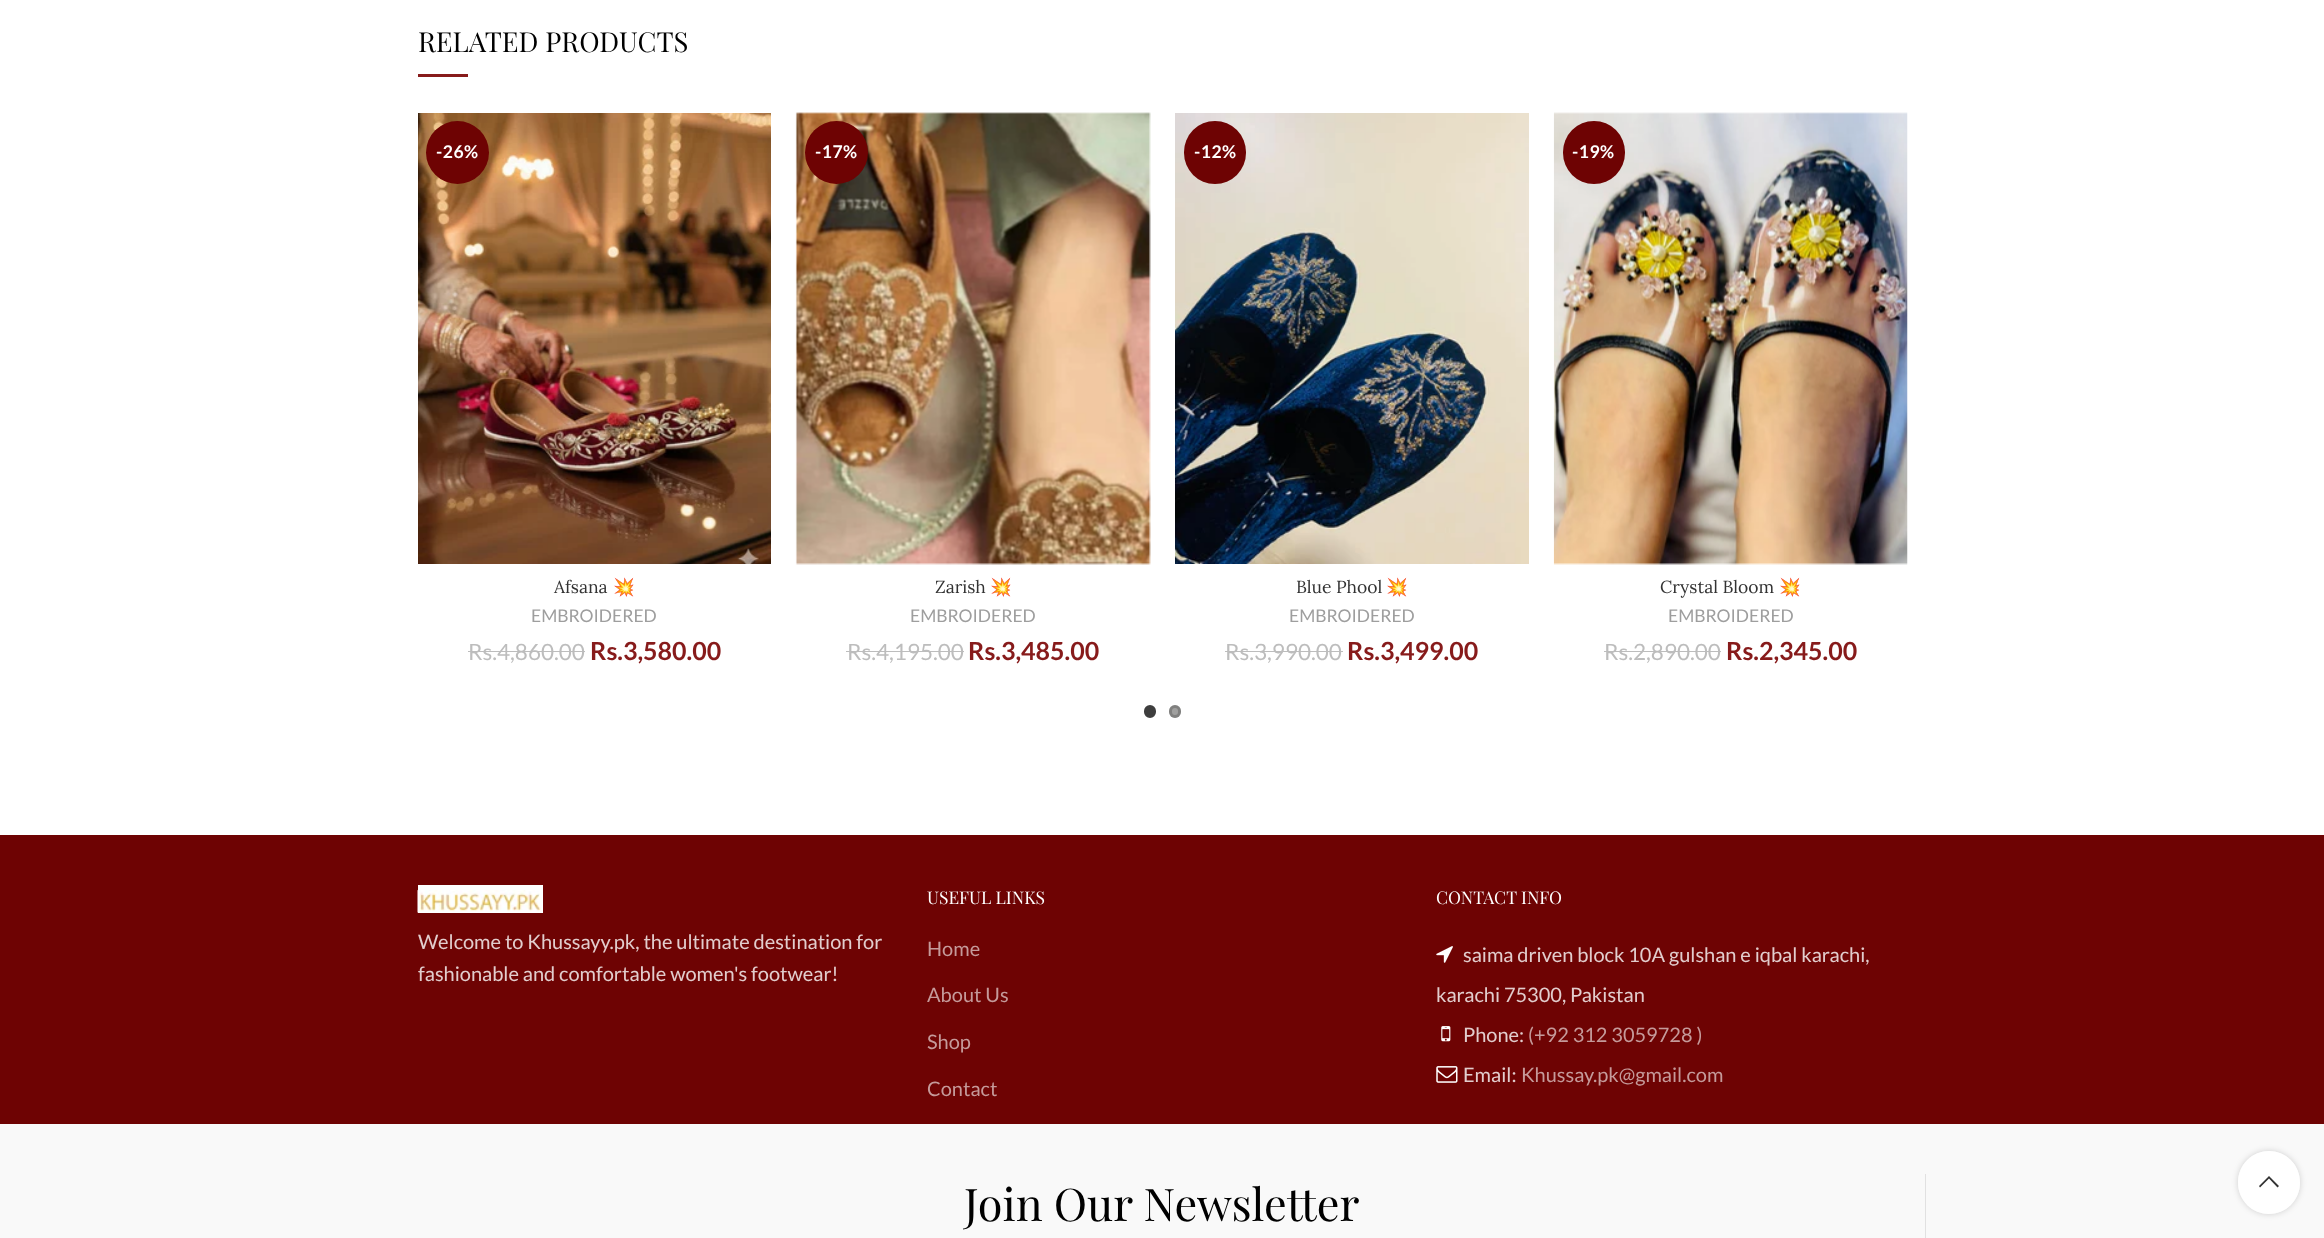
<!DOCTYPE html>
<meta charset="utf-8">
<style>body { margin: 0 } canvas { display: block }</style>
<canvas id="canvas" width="2324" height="1238"></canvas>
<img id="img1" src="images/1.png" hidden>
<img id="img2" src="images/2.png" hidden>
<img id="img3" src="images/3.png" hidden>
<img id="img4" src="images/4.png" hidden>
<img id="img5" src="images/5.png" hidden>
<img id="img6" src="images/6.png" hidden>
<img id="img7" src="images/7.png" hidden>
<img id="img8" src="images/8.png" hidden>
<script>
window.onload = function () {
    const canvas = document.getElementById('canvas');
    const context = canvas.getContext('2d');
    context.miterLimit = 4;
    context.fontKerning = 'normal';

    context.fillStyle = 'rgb(255, 255, 255)';
    context.fillRect(0, 0, 2324, 1238);
    context.fillStyle = 'rgb(135, 27, 27)';
    context.fillRect(418, 74, 50, 3);
    context.drawImage(document.getElementById('img1'), 418, 113, 353, 451);
    context.fillStyle = 'rgb(110, 3, 3)';
    context.beginPath();
    context.arc(457.5, 152.5, 31.5, 0, 2 * Math.PI);
    context.fill();
    context.fillStyle = 'rgb(189, 189, 189)';
    context.fillRect(468, 651, 117, 1);
    context.drawImage(document.getElementById('img2'), 795, 112, 356, 453);
    context.fillStyle = 'rgb(110, 3, 3)';
    context.beginPath();
    context.arc(836.5, 152.5, 31.5, 0, 2 * Math.PI);
    context.fill();
    context.fillStyle = 'rgb(189, 189, 189)';
    context.fillRect(846, 651, 118, 1);
    context.drawImage(document.getElementById('img3'), 1175, 113, 354, 451);
    context.fillStyle = 'rgb(110, 3, 3)';
    context.beginPath();
    context.roundRect(1184, 121, 62, 63, 31);
    context.fill();
    context.fillStyle = 'rgb(189, 189, 189)';
    context.fillRect(1225, 651, 118, 1);
    context.drawImage(document.getElementById('img4'), 1553, 112, 355, 453);
    context.fillStyle = 'rgb(110, 3, 3)';
    context.beginPath();
    context.roundRect(1563, 121, 62, 63, 31);
    context.fill();
    context.fillStyle = 'rgb(189, 189, 189)';
    context.fillRect(1604, 651, 117, 1);
    context.fillStyle = 'rgb(62, 62, 62)';
    context.beginPath();
    context.roundRect(1145.5, 706.5, 9, 10, 4.5);
    context.fill();
    context.strokeStyle = 'rgb(62, 62, 62)';
    context.lineWidth = 3;
    context.stroke();
    context.fillStyle = 'rgb(160, 160, 159)';
    context.beginPath();
    context.roundRect(1169, 705, 12, 13, 6);
    context.fill();
    context.beginPath();
    context.roundRect(1170.5, 706.5, 9, 10, 4.5);
    context.strokeStyle = 'rgba(0, 0, 0, 0.2)';
    context.stroke();
    context.fillStyle = 'rgb(110, 3, 3)';
    context.fillRect(0, 835, 2324, 289);
    context.fillStyle = 'rgb(255, 255, 255)';
    context.fillRect(418, 885, 125, 28);
    context.drawImage(document.getElementById('img5'), 417, 889, 125, 24);
    context.drawImage(document.getElementById('img6'), 1436, 946, 17, 17);
    context.drawImage(document.getElementById('img7'), 1441, 1026, 10, 16);
    context.drawImage(document.getElementById('img8'), 1436, 1066, 22, 17);
    context.fillStyle = 'rgb(249, 249, 249)';
    context.fillRect(0, 1124, 2324, 114);
    context.fillStyle = 'rgb(225, 225, 225)';
    context.fillRect(1925, 1174, 1, 64);
    context.save();
    context.beginPath();
    context.moveTo(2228, 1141);
    context.lineTo(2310, 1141);
    context.lineTo(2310, 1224);
    context.lineTo(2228, 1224);
    context.closePath();
    context.moveTo(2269, 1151);
    context.bezierCurveTo(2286, 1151, 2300, 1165, 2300, 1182);
    context.lineTo(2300, 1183);
    context.bezierCurveTo(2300, 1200, 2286, 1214, 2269, 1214);
    context.bezierCurveTo(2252, 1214, 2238, 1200, 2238, 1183);
    context.lineTo(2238, 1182);
    context.bezierCurveTo(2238, 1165, 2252, 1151, 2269, 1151);
    context.closePath();
    context.clip('evenodd');
    context.fillStyle = 'rgba(0, 0, 0, 0.17)';
    context.filter = 'blur(3px)';
    context.beginPath();
    context.roundRect(2238, 1151, 62, 63, 31);
    context.fill();
    context.filter = 'none';
    context.restore();
    context.fillStyle = 'rgba(255, 255, 255, 0.9)';
    context.beginPath();
    context.roundRect(2238, 1151, 62, 63, 31);
    context.fill();
    context.fillStyle = 'rgb(51, 51, 51)';
    context.beginPath();
    context.moveTo(2269, 1176);
    context.lineTo(2279, 1186);
    context.lineTo(2277.5, 1187.5);
    context.lineTo(2269, 1178.5);
    context.lineTo(2260, 1187.5);
    context.lineTo(2259, 1186);
    context.closePath();
    context.fill();
    context.font = '27.5px Playfair Display';
    context.fillStyle = 'rgb(0, 0, 0)';
    context.fillText('RELATED PRODUCTS', 418, 52);
    context.letterSpacing = '0.5px';
    context.font = 'bold 17.5px Lato';
    context.fillStyle = 'rgb(255, 255, 255)';
    context.fillText('-26%', 436, 158);
    context.letterSpacing = '0px';
    context.font = '17.5px Lora';
    context.fillStyle = 'rgb(51, 51, 51)';
    context.fillText('Afsana', 554, 593);
    context.font = '17.5px Noto Color Emoji';
    context.fillText('💥', 613, 593);
    context.font = '17.5px Lato';
    context.fillStyle = 'rgb(158, 158, 158)';
    context.fillText('EMBROIDERED', 531, 622);
    context.font = '22.5px Lato';
    context.fillStyle = 'rgb(189, 189, 189)';
    context.fillText('Rs.4,860.00', 468, 660);
    context.font = 'bold 25px Lato';
    context.fillStyle = 'rgb(135, 27, 27)';
    context.fillText('Rs.3,580.00', 590, 660);
    context.letterSpacing = '0.5px';
    context.font = 'bold 17.5px Lato';
    context.fillStyle = 'rgb(255, 255, 255)';
    context.fillText('-17%', 815, 158);
    context.letterSpacing = '0px';
    context.font = '17.5px Lora';
    context.fillStyle = 'rgb(51, 51, 51)';
    context.fillText('Zarish', 935, 593);
    context.font = '17.5px Noto Color Emoji';
    context.fillText('💥', 990, 593);
    context.font = '17.5px Lato';
    context.fillStyle = 'rgb(158, 158, 158)';
    context.fillText('EMBROIDERED', 910, 622);
    context.font = '22.5px Lato';
    context.fillStyle = 'rgb(189, 189, 189)';
    context.fillText('Rs.4,195.00', 847, 660);
    context.font = 'bold 25px Lato';
    context.fillStyle = 'rgb(135, 27, 27)';
    context.fillText('Rs.3,485.00', 968, 660);
    context.letterSpacing = '0.5px';
    context.font = 'bold 17.5px Lato';
    context.fillStyle = 'rgb(255, 255, 255)';
    context.fillText('-12%', 1194, 158);
    context.letterSpacing = '0px';
    context.font = '17.5px Lora';
    context.fillStyle = 'rgb(51, 51, 51)';
    context.fillText('Blue Phool', 1296, 593);
    context.font = '17.5px Noto Color Emoji';
    context.fillText('💥', 1386, 593);
    context.font = '17.5px Lato';
    context.fillStyle = 'rgb(158, 158, 158)';
    context.fillText('EMBROIDERED', 1289, 622);
    context.font = '22.5px Lato';
    context.fillStyle = 'rgb(189, 189, 189)';
    context.fillText('Rs.3,990.00', 1225, 660);
    context.font = 'bold 25px Lato';
    context.fillStyle = 'rgb(135, 27, 27)';
    context.fillText('Rs.3,499.00', 1347, 660);
    context.letterSpacing = '0.5px';
    context.font = 'bold 17.5px Lato';
    context.fillStyle = 'rgb(255, 255, 255)';
    context.fillText('-19%', 1572, 158);
    context.letterSpacing = '0px';
    context.font = '17.5px Lora';
    context.fillStyle = 'rgb(51, 51, 51)';
    context.fillText('Crystal Bloom', 1660, 593);
    context.font = '17.5px Noto Color Emoji';
    context.fillText('💥', 1779, 593);
    context.font = '17.5px Lato';
    context.fillStyle = 'rgb(158, 158, 158)';
    context.fillText('EMBROIDERED', 1668, 622);
    context.font = '22.5px Lato';
    context.fillStyle = 'rgb(189, 189, 189)';
    context.fillText('Rs.2,890.00', 1604, 660);
    context.font = 'bold 25px Lato';
    context.fillStyle = 'rgb(135, 27, 27)';
    context.fillText('Rs.2,345.00', 1726, 660);
    context.font = '20px Lato';
    context.fillStyle = 'rgb(226, 205, 205)';
    context.fillText('Welcome to Khussayy.pk, the ultimate destination for', 418, 949);
    context.fillText('fashionable and comfortable women\'s footwear!', 418, 981);
    context.font = '17.5px Playfair Display';
    context.fillStyle = 'rgb(255, 255, 255)';
    context.fillText('USEFUL LINKS', 927, 904);
    context.font = '20px Lato';
    context.fillStyle = 'rgb(197, 154, 154)';
    context.fillText('Home', 927, 956);
    context.fillText('About Us', 927, 1002);
    context.fillText('Shop', 927, 1049);
    context.fillText('Contact', 927, 1096);
    context.font = '17.5px Playfair Display';
    context.fillStyle = 'rgb(255, 255, 255)';
    context.fillText('CONTACT INFO', 1436, 904);
    context.font = '20px Lato';
    context.fillStyle = 'rgb(226, 205, 205)';
    context.fillText('saima driven block 10A gulshan e iqbal karachi,', 1463, 962);
    context.fillText('karachi 75300, Pakistan', 1436, 1002);
    context.fillText('Phone:', 1463, 1042);
    context.fillStyle = 'rgb(197, 154, 154)';
    context.fillText('(+92 312 3059728 )', 1528, 1042);
    context.fillStyle = 'rgb(226, 205, 205)';
    context.fillText('Email:', 1463, 1082);
    context.fillStyle = 'rgb(197, 154, 154)';
    context.fillText('Khussay.pk@gmail.com', 1521, 1082);
    context.font = '45px Playfair Display';
    context.fillStyle = 'rgb(0, 0, 0)';
    context.fillText('Join Our Newsletter', 964, 1221);
};
</script>
